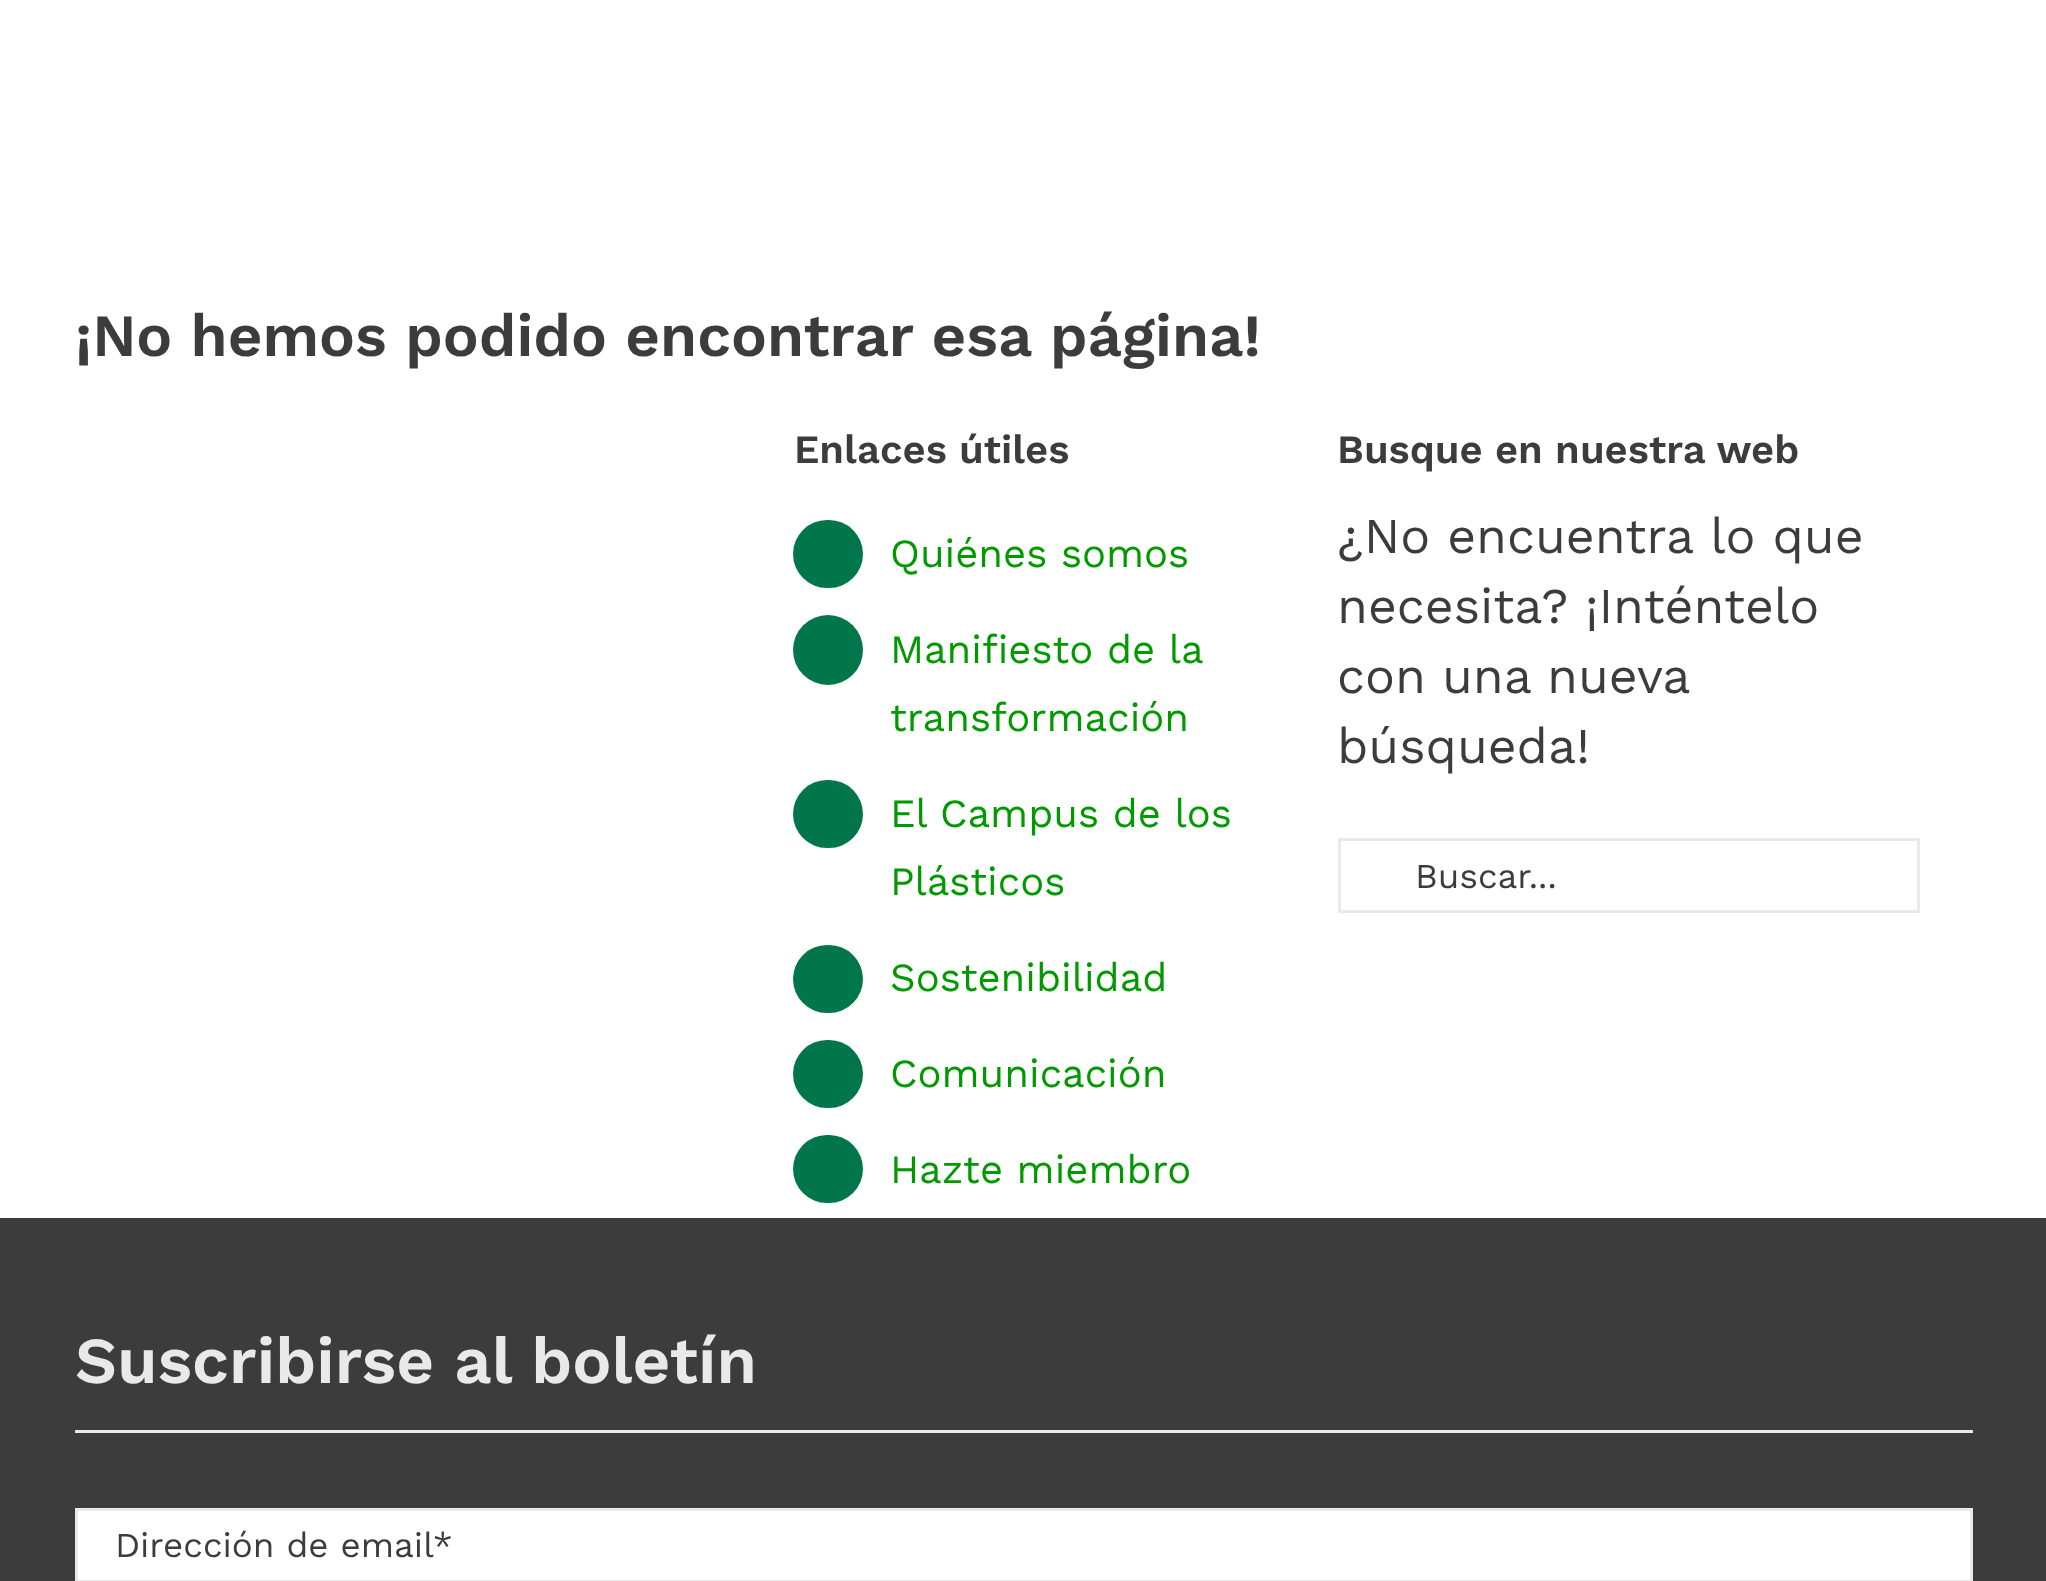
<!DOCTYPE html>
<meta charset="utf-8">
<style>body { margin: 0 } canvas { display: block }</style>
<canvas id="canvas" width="2046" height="1581"></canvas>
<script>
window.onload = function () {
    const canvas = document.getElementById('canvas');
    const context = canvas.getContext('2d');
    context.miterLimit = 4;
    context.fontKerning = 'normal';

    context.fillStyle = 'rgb(255, 255, 255)';
    context.fillRect(0, 0, 2046, 1581);
    context.fillStyle = 'rgb(1, 118, 74)';
    context.beginPath();
    context.roundRect(793, 520, 70, 68, 34);
    context.fill();
    context.beginPath();
    context.arc(828, 650, 35, 0, 2 * Math.PI);
    context.fill();
    context.beginPath();
    context.roundRect(793, 780, 70, 68, 34);
    context.fill();
    context.beginPath();
    context.roundRect(793, 945, 70, 68, 34);
    context.fill();
    context.beginPath();
    context.roundRect(793, 1040, 70, 68, 34);
    context.fill();
    context.beginPath();
    context.roundRect(793, 1135, 70, 68, 34);
    context.fill();
    context.strokeStyle = 'rgb(233, 233, 233)';
    context.lineWidth = 3;
    context.strokeRect(1339.5, 839.5, 579, 72);
    context.fillStyle = 'rgb(60, 60, 60)';
    context.fillRect(0, 1218, 2046, 363);
    context.fillStyle = 'rgb(233, 233, 233)';
    context.fillRect(75, 1430, 1898, 3);
    context.fillStyle = 'rgb(255, 255, 255)';
    context.beginPath();
    context.rect(76.5, 1509.5, 1895, 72);
    context.fill();
    context.stroke();
    context.font = '600 60px Work Sans';
    context.fillStyle = 'rgb(60, 60, 60)';
    context.fillText('¡No hemos podido encontrar esa página!', 75, 356);
    context.font = '600 40px Work Sans';
    context.fillText('Enlaces útiles', 794, 463);
    context.font = '40px Work Sans';
    context.fillStyle = 'rgb(0, 153, 0)';
    context.fillText('Quiénes somos', 890, 567);
    context.fillText('Manifiesto de la', 890, 663);
    context.fillText('transformación', 890, 731);
    context.fillText('El Campus de los', 890, 827);
    context.fillText('Plásticos', 890, 895);
    context.fillText('Sostenibilidad', 890, 991);
    context.fillText('Comunicación', 890, 1087);
    context.fillText('Hazte miembro', 890, 1183);
    context.font = '600 40px Work Sans';
    context.fillStyle = 'rgb(60, 60, 60)';
    context.fillText('Busque en nuestra web', 1337, 463);
    context.font = '50px Work Sans';
    context.fillText('¿No encuentra lo que', 1337, 553);
    context.fillText('necesita? ¡Inténtelo', 1337, 623);
    context.wordSpacing = '-1px';
    context.fillText('con una nueva', 1337, 693);
    context.wordSpacing = '0px';
    context.fillText('búsqueda!', 1337, 763);
    context.font = '35px Work Sans';
    context.fillText('Buscar...', 1415, 888);
    context.font = '600 65.5px Work Sans';
    context.fillStyle = 'rgb(233, 233, 233)';
    context.fillText('Suscribirse al boletín', 75, 1383);
    context.font = '35px Work Sans';
    context.fillStyle = 'rgb(60, 60, 60)';
    context.fillText('Dirección de email*', 115, 1557);
};
</script>
